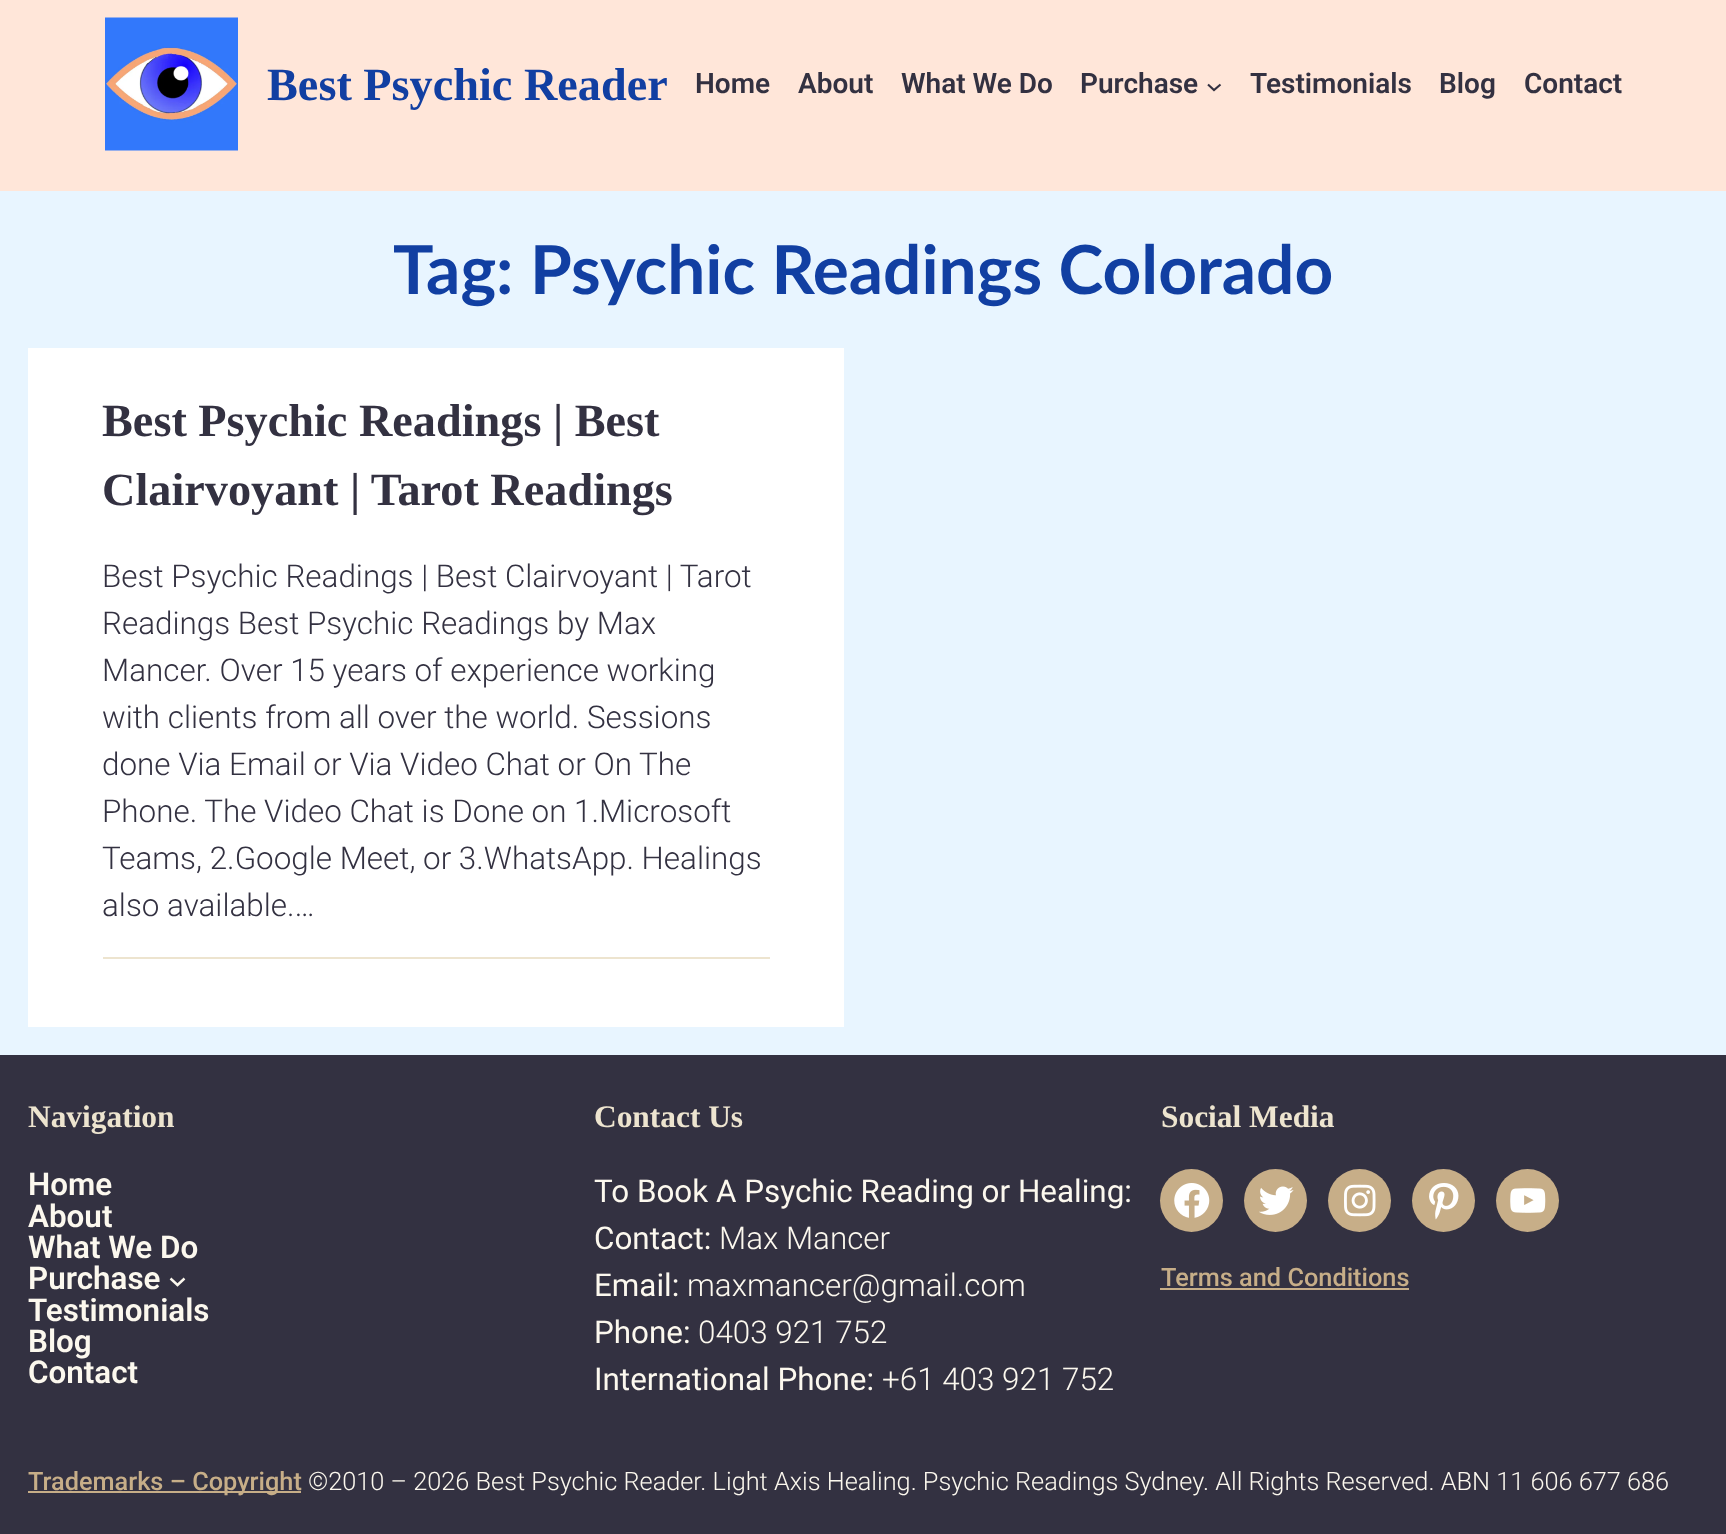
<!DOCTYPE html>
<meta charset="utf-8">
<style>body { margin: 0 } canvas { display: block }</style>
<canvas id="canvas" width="1726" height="1534"></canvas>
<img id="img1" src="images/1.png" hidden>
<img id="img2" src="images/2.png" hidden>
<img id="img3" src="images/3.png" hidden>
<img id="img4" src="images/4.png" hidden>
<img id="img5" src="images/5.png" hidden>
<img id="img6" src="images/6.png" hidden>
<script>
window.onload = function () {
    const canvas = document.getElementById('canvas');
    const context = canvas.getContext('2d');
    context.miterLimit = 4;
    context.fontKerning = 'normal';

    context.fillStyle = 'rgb(232, 245, 255)';
    context.fillRect(0, 0, 1726, 1534);
    context.fillStyle = 'rgb(255, 230, 217)';
    context.fillRect(0, 0, 1726, 191);
    context.drawImage(document.getElementById('img1'), 105, 17, 133, 134);
    context.beginPath();
    context.moveTo(1208, 84.5);
    context.lineTo(1214, 90);
    context.lineTo(1220.5, 84.5);
    context.strokeStyle = 'rgb(51, 49, 65)';
    context.lineWidth = 2.1;
    context.stroke();
    context.fillStyle = 'rgb(255, 255, 255)';
    context.fillRect(28, 348, 816, 679);
    context.fillStyle = 'rgb(237, 228, 207)';
    context.fillRect(103, 957, 667, 2);
    context.fillStyle = 'rgb(51, 49, 65)';
    context.fillRect(0, 1055, 1726, 479);
    context.beginPath();
    context.moveTo(170.5, 1278.5);
    context.lineTo(177.5, 1285);
    context.lineTo(184.5, 1278.5);
    context.strokeStyle = 'rgb(252, 248, 238)';
    context.lineWidth = 2.4;
    context.stroke();
    context.fillStyle = 'rgb(199, 174, 136)';
    context.beginPath();
    context.arc(1191.5, 1200.5, 31.5, 0, 2 * Math.PI);
    context.fill();
    context.drawImage(document.getElementById('img2'), 1174, 1183, 36, 35);
    context.beginPath();
    context.arc(1275.5, 1200.5, 31.5, 0, 2 * Math.PI);
    context.fill();
    context.drawImage(document.getElementById('img3'), 1259, 1186, 35, 29);
    context.beginPath();
    context.arc(1359.5, 1200.5, 31.5, 0, 2 * Math.PI);
    context.fill();
    context.drawImage(document.getElementById('img4'), 1344, 1184, 32, 33);
    context.beginPath();
    context.arc(1443.5, 1200.5, 31.5, 0, 2 * Math.PI);
    context.fill();
    context.drawImage(document.getElementById('img5'), 1429, 1183, 30, 37);
    context.beginPath();
    context.arc(1527.5, 1200.5, 31.5, 0, 2 * Math.PI);
    context.fill();
    context.drawImage(document.getElementById('img6'), 1510, 1188, 36, 25);
    context.fillRect(1160, 1288, 249, 2);
    context.fillRect(28, 1491, 273, 2);
    context.font = 'bold 46.25px Liberation Serif';
    context.fillStyle = 'rgb(17, 63, 162)';
    context.fillText('Best Psychic Reader', 267, 100);
    context.font = '600 28px Roboto';
    context.fillStyle = 'rgb(51, 49, 65)';
    context.fillText('Home', 695, 93);
    context.fillText('About', 798, 93);
    context.fillText('What We Do', 901, 93);
    context.fillText('Purchase', 1080, 93);
    context.fillText('Testimonials', 1250, 93);
    context.fillText('Blog', 1439, 93);
    context.fillText('Contact', 1524, 93);
    context.font = 'bold 67.6px Lato';
    context.fillStyle = 'rgb(17, 63, 162)';
    context.fillText('Tag: Psychic Readings Colorado', 393, 294);
    context.font = 'bold 46.25px Liberation Serif';
    context.fillStyle = 'rgb(51, 49, 65)';
    context.fillText('Best Psychic Readings | Best', 102, 436);
    context.fillText('Clairvoyant | Tarot Readings', 102, 505);
    context.font = '300 31.4px Roboto';
    context.fillText('Best Psychic Readings | Best Clairvoyant | Tarot', 102, 587);
    context.fillText('Readings Best Psychic Readings by Max', 102, 634);
    context.fillText('Mancer. Over 15 years of experience working', 102, 681);
    context.fillText('with clients from all over the world. Sessions', 102, 728);
    context.fillText('done Via Email or Via Video Chat or On The', 102, 775);
    context.fillText('Phone. The Video Chat is Done on 1.Microsoft', 102, 822);
    context.fillText('Teams, 2.Google Meet, or 3.WhatsApp. Healings', 102, 869);
    context.fillText('also available.…', 102, 916);
    context.font = 'bold 31.4px Liberation Serif';
    context.fillStyle = 'rgb(237, 228, 207)';
    context.fillText('Navigation', 28, 1127);
    context.font = '600 31.4px Roboto';
    context.fillStyle = 'rgb(252, 248, 238)';
    context.fillText('Home', 28, 1195);
    context.fillText('About', 28, 1227);
    context.fillText('What We Do', 28, 1258);
    context.fillText('Purchase', 28, 1289);
    context.fillText('Testimonials', 28, 1321);
    context.fillText('Blog', 28, 1352);
    context.fillText('Contact', 28, 1383);
    context.font = 'bold 31.4px Liberation Serif';
    context.fillStyle = 'rgb(237, 228, 207)';
    context.fillText('Contact Us', 594, 1127);
    context.font = '31.4px Roboto';
    context.fillStyle = 'rgb(252, 248, 238)';
    context.fillText('To Book A Psychic Reading or Healing:', 594, 1202);
    context.fillText('Contact:', 594, 1249);
    context.font = '300 31.4px Roboto';
    context.fillText('Max Mancer', 719, 1249);
    context.font = '31.4px Roboto';
    context.fillText('Email:', 594, 1296);
    context.font = '300 31.4px Roboto';
    context.fillText('maxmancer@gmail.com', 687, 1296);
    context.font = '31.4px Roboto';
    context.fillText('Phone:', 594, 1343);
    context.font = '300 31.4px Roboto';
    context.fillText('0403 921 752', 698, 1343);
    context.font = '31.4px Roboto';
    context.fillText('International Phone:', 594, 1390);
    context.font = '300 31.4px Roboto';
    context.fillText('+61 403 921 752', 882, 1390);
    context.font = 'bold 31.4px Liberation Serif';
    context.fillStyle = 'rgb(237, 228, 207)';
    context.fillText('Social Media', 1161, 1127);
    context.font = '500 25.32px Roboto';
    context.fillStyle = 'rgb(199, 174, 136)';
    context.fillText('Terms and Conditions', 1161, 1286);
    context.fillText('Trademarks – Copyright', 28, 1490);
    context.font = '300 25.32px Roboto';
    context.fillStyle = 'rgb(252, 248, 238)';
    context.fillText('©2010 – 2026 Best Psychic Reader. Light Axis Healing. Psychic Readings Sydney. All Rights Reserved. ABN 11 606 677 686', 308, 1490);
};
</script>
